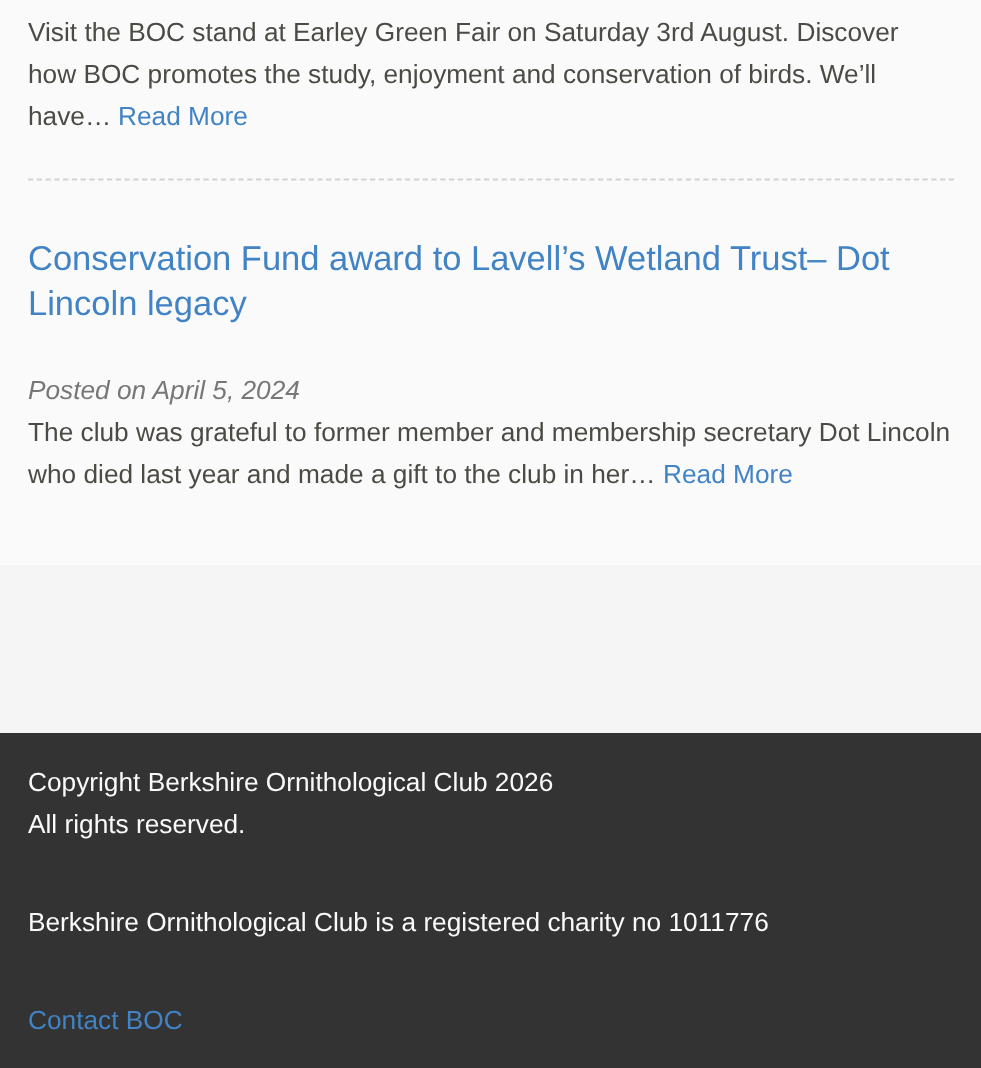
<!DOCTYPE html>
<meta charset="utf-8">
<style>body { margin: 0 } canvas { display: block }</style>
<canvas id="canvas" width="981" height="1068"></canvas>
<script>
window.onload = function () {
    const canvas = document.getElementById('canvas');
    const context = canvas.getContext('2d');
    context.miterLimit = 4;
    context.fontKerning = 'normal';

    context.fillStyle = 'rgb(245, 245, 245)';
    context.fillRect(0, 0, 981, 1068);
    context.fillStyle = 'rgb(250, 250, 250)';
    context.fillRect(0, 0, 981, 565);
    context.beginPath();
    context.moveTo(28, 179.5);
    context.lineTo(954, 179.5);
    context.strokeStyle = 'rgb(210, 210, 208)';
    context.lineWidth = 1.8;
    context.setLineDash([5.25, 3.52]);
    context.stroke();
    context.fillStyle = 'rgb(51, 51, 51)';
    context.fillRect(0, 733, 981, 335);
    context.font = '26.25px Liberation Sans';
    context.fillStyle = 'rgb(75, 75, 69)';
    context.fillText('Visit the BOC stand at Earley Green Fair on Saturday 3rd August. Discover', 28, 41);
    context.fillText('how BOC promotes the study, enjoyment and conservation of birds. We’ll', 28, 83);
    context.fillText('have…', 28, 125);
    context.fillStyle = 'rgb(65, 131, 196)';
    context.fillText('Read More', 118, 125);
    context.font = '34.5px Liberation Sans';
    context.fillText('Conservation Fund award to Lavell’s Wetland Trust– Dot', 28, 270);
    context.fillText('Lincoln legacy', 28, 315);
    context.font = 'italic 26.25px Liberation Sans';
    context.fillStyle = 'rgb(119, 119, 119)';
    context.fillText('Posted on April 5, 2024', 28, 399);
    context.font = '26.25px Liberation Sans';
    context.fillStyle = 'rgb(75, 75, 69)';
    context.fillText('The club was grateful to former member and membership secretary Dot Lincoln', 28, 441);
    context.fillText('who died last year and made a gift to the club in her…', 28, 483);
    context.fillStyle = 'rgb(65, 131, 196)';
    context.fillText('Read More', 663, 483);
    context.fillStyle = 'rgb(250, 250, 250)';
    context.fillText('Copyright Berkshire Ornithological Club 2026', 28, 791);
    context.fillText('All rights reserved.', 28, 833);
    context.fillText('Berkshire Ornithological Club is a registered charity no 1011776', 28, 931);
    context.fillStyle = 'rgb(65, 131, 196)';
    context.fillText('Contact BOC', 28, 1029);
};
</script>
